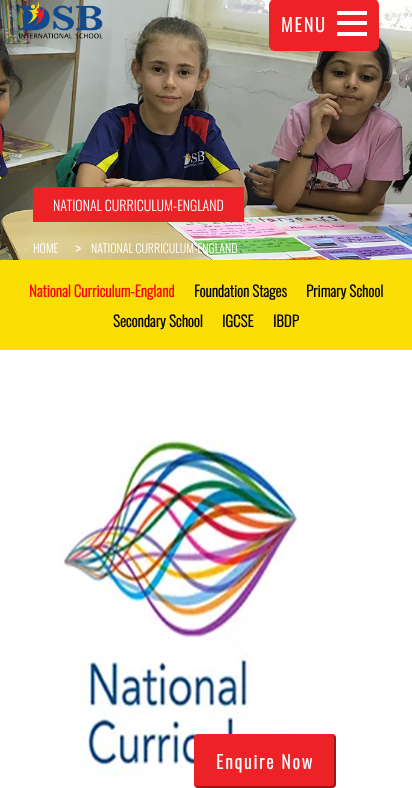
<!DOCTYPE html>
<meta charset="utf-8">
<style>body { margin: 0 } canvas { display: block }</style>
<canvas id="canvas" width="412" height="788"></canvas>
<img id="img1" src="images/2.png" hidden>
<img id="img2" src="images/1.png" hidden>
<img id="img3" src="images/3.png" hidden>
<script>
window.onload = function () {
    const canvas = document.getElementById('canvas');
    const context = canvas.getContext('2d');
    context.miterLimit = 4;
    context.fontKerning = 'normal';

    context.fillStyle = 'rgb(255, 255, 255)';
    context.fillRect(0, 0, 412, 788);
    context.drawImage(document.getElementById('img1'), 0, 0, 412, 260);
    context.drawImage(document.getElementById('img2'), 19, 1, 84, 38);
    context.fillStyle = 'rgb(237, 34, 39)';
    context.beginPath();
    context.roundRect(269, -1, 110, 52, 6);
    context.fill();
    context.fillStyle = 'rgb(255, 255, 255)';
    context.fillRect(337, 11, 30, 4);
    context.fillRect(337, 21, 30, 4);
    context.fillRect(337, 32, 30, 4);
    context.fillStyle = 'rgb(237, 34, 39)';
    context.fillRect(33, 187, 211, 35);
    context.fillStyle = 'rgb(252, 222, 7)';
    context.fillRect(0, 260, 412, 90);
    context.drawImage(document.getElementById('img3'), 60, 439, 238, 337);
    context.fillStyle = 'rgb(237, 34, 39)';
    context.beginPath();
    context.roundRect(194, 734, 142, 54, 4);
    context.fill();
    context.beginPath();
    context.moveTo(334, 736);
    context.lineTo(335, 738);
    context.lineTo(335, 784);
    context.lineTo(334, 786);
    context.lineTo(332, 787);
    context.lineTo(198, 787);
    context.lineTo(196, 786);
    context.strokeStyle = 'rgb(158, 23, 26)';
    context.lineWidth = 2;
    context.stroke();
    context.beginPath();
    context.moveTo(196, 786);
    context.lineTo(195, 784);
    context.lineTo(195, 738);
    context.lineTo(196, 736);
    context.lineTo(198, 735);
    context.lineTo(332, 735);
    context.lineTo(334, 736);
    context.strokeStyle = 'rgb(237, 34, 39)';
    context.stroke();
    context.letterSpacing = '2px';
    context.font = 'bold 18px Oswald';
    context.fillStyle = 'rgb(255, 255, 255)';
    context.fillText('MENU', 281, 32);
    context.letterSpacing = '0px';
    context.font = '300 14px Oswald';
    context.fillText('NATIONAL CURRICULUM-ENGLAND', 53, 211);
    context.font = '300 12px Oswald';
    context.fillText('HOME', 33, 253);
    context.font = '300 18px Oswald';
    context.fillText('>', 75, 256);
    context.font = '300 12px Oswald';
    context.fillText('NATIONAL CURRICULUM-ENGLAND', 91, 253);
    context.font = 'bold 15px Oswald';
    context.fillStyle = 'rgb(255, 0, 0)';
    context.fillText('National Curriculum-England', 29, 297);
    context.fillStyle = 'rgb(0, 0, 0)';
    context.fillText('Foundation Stages', 194, 297);
    context.fillText('Primary School', 306, 297);
    context.fillText('Secondary School', 113, 327);
    context.fillText('IGCSE', 222, 327);
    context.fillText('IBDP', 273, 327);
    context.letterSpacing = '2px';
    context.font = 'bold 18px Oswald';
    context.fillStyle = 'rgb(255, 255, 255)';
    context.fillText('Enquire Now', 216, 769);
};
</script>
